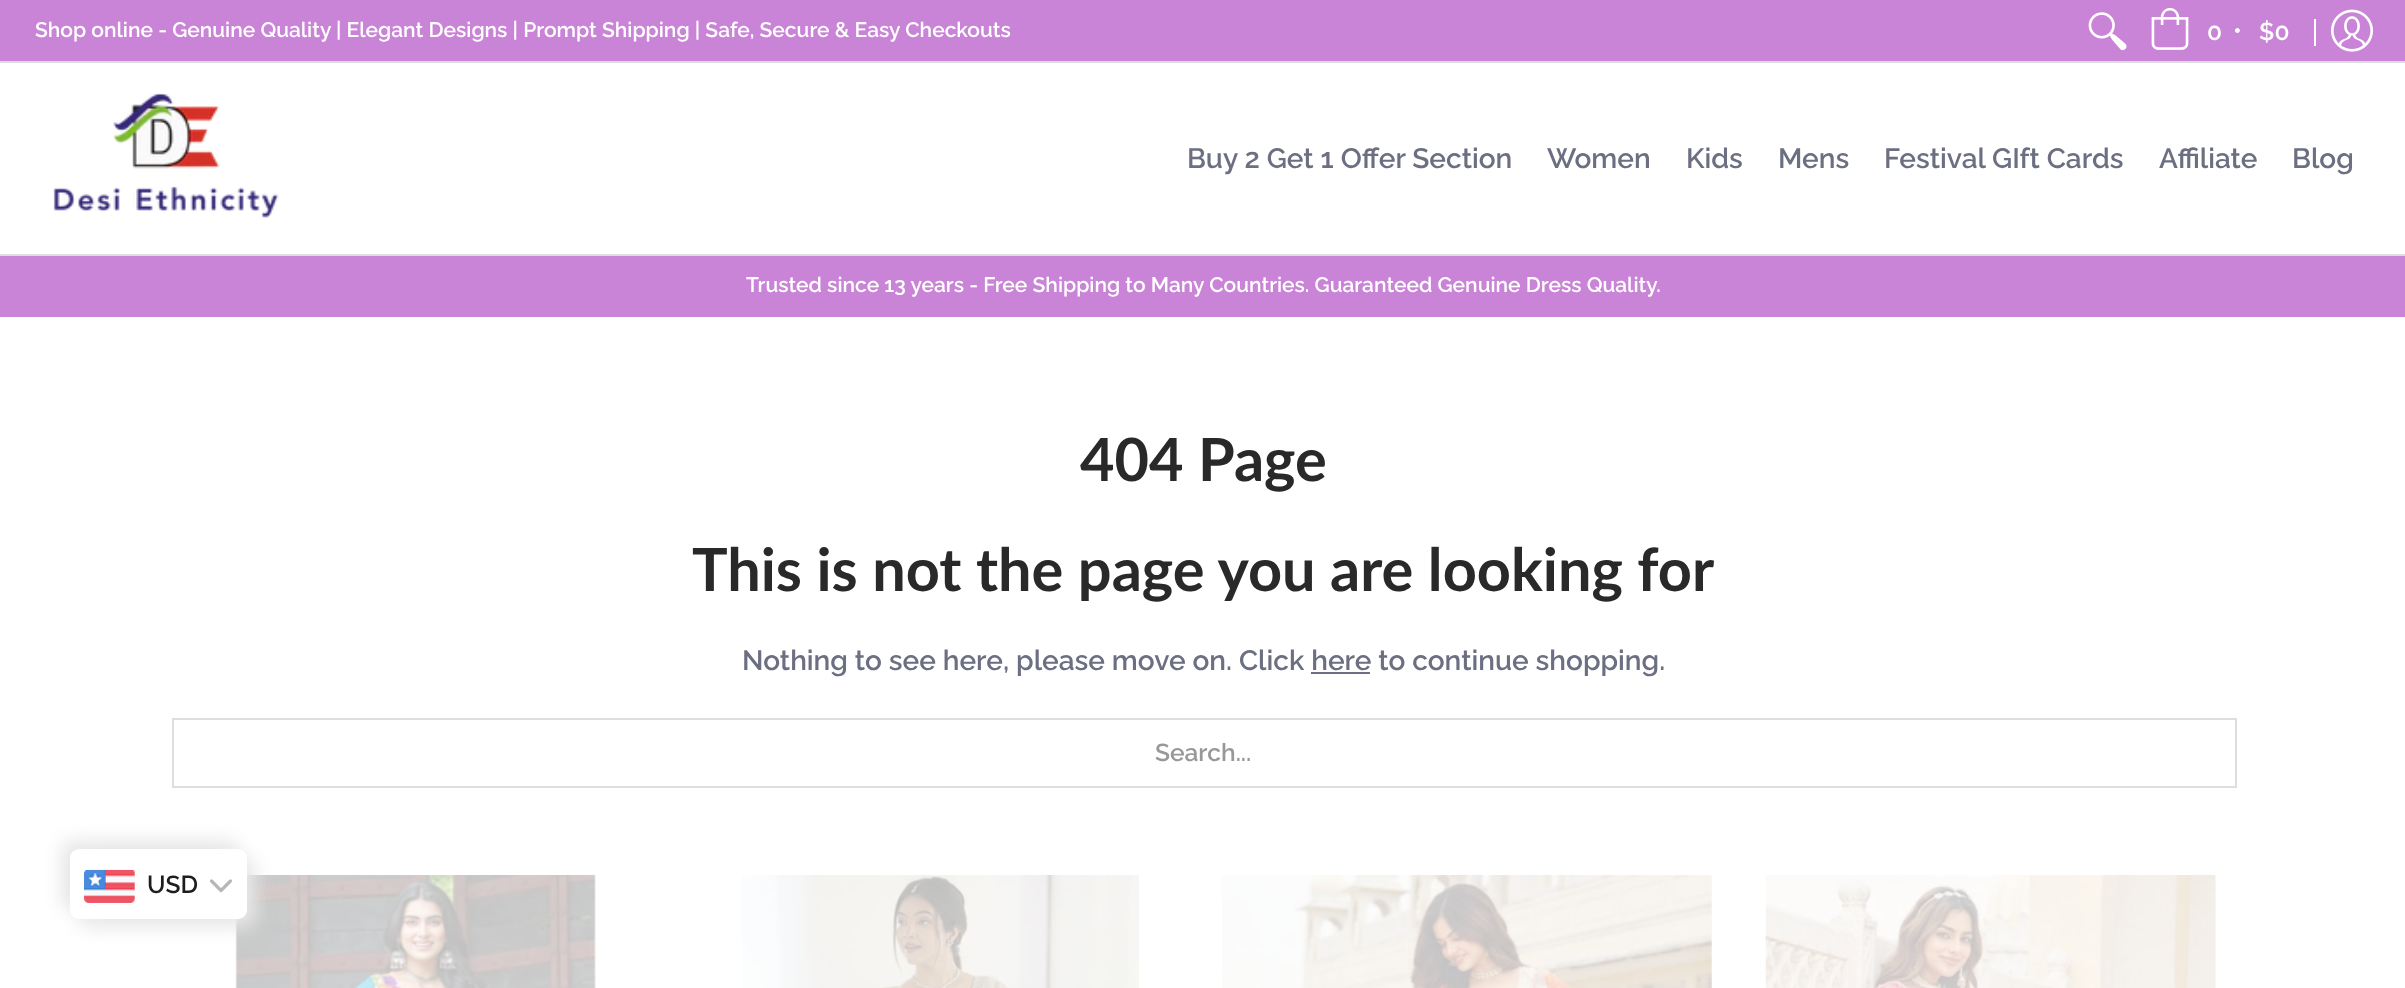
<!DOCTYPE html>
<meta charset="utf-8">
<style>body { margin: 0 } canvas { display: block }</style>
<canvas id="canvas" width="2405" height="988"></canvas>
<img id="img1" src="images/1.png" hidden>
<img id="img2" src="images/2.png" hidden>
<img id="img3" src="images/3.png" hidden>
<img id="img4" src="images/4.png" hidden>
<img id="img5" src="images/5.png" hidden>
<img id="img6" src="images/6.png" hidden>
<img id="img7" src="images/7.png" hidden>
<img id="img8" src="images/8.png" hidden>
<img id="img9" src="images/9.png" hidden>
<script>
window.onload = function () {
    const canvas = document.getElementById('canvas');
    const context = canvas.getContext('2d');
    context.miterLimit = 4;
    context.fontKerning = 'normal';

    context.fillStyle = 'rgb(255, 255, 255)';
    context.fillRect(0, 0, 2405, 988);
    context.fillStyle = 'rgb(202, 132, 215)';
    context.fillRect(0, 0, 2405, 61);
    context.fillStyle = 'rgb(222, 222, 222)';
    context.fillRect(0, 61, 2405, 2);
    context.drawImage(document.getElementById('img1'), 2088, 12, 39, 39);
    context.drawImage(document.getElementById('img2'), 2151, 7, 38, 43);
    context.fillStyle = 'rgb(255, 255, 255)';
    context.fillRect(2314, 19, 2, 27);
    context.drawImage(document.getElementById('img3'), 2331, 9, 42, 43);
    context.fillStyle = 'rgb(222, 222, 222)';
    context.fillRect(0, 254, 2405, 2);
    context.drawImage(document.getElementById('img4'), 53, 93, 226, 125);
    context.fillStyle = 'rgb(202, 132, 215)';
    context.fillRect(0, 256, 2405, 61);
    context.fillStyle = 'rgb(107, 111, 129)';
    context.fillRect(1311, 672, 59, 2);
    context.strokeStyle = 'rgb(222, 222, 222)';
    context.lineWidth = 2;
    context.strokeRect(173, 719, 2063, 68);
    context.drawImage(document.getElementById('img5'), 235, 875, 361, 113);
    context.drawImage(document.getElementById('img6'), 742, 875, 397, 113);
    context.drawImage(document.getElementById('img7'), 1222, 875, 490, 113);
    context.drawImage(document.getElementById('img8'), 1765, 875, 451, 113);
    context.fillStyle = 'rgb(232, 232, 232)';
    context.filter = 'blur(9px)';
    context.beginPath();
    context.roundRect(61, 840, 177, 70, 9);
    context.fill();
    context.filter = 'none';
    context.filter = 'blur(9px)';
    context.beginPath();
    context.roundRect(79, 858, 177, 70, 9);
    context.fill();
    context.filter = 'none';
    context.fillStyle = 'rgb(255, 255, 255)';
    context.beginPath();
    context.roundRect(70, 849, 177, 70, 9);
    context.fill();
    context.drawImage(document.getElementById('img9'), 84, 869, 51, 34);
    context.beginPath();
    context.moveTo(211.5, 881);
    context.lineTo(221, 890.5);
    context.lineTo(230.5, 881);
    context.strokeStyle = 'rgb(183, 183, 183)';
    context.lineWidth = 3.2;
    context.lineCap = 'round';
    context.lineJoin = 'round';
    context.stroke();
    context.font = '600 21px Raleway';
    context.fillText('Shop online - Genuine Quality | Elegant Designs | Prompt Shipping | Safe, Secure & Easy Checkouts', 35, 37);
    context.font = '600 24.5px Raleway';
    context.fillText('0', 2207, 40);
    context.fillText('•', 2233, 39);
    context.fillText('$0', 2259, 40);
    context.font = '600 28px Raleway';
    context.fillStyle = 'rgb(107, 111, 129)';
    context.fillText('Buy 2 Get 1 Offer Section', 1187, 168);
    context.fillText('Women', 1547, 168);
    context.fillText('Kids', 1686, 168);
    context.fillText('Mens', 1778, 168);
    context.fillText('Festival GIft Cards', 1884, 168);
    context.fillText('Affiliate', 2159, 168);
    context.fillText('Blog', 2292, 168);
    context.font = '600 21px Raleway';
    context.fillStyle = 'rgb(255, 255, 255)';
    context.fillText('Trusted since 13 years - Free Shipping to Many Countries. Guaranteed Genuine Dress Quality.', 746, 292);
    context.font = 'bold 59.5px Lato';
    context.fillStyle = 'rgb(41, 41, 41)';
    context.fillText('404 Page', 1080, 481);
    context.fillText('This is not the page you are looking for', 692, 591);
    context.font = '600 28px Raleway';
    context.fillStyle = 'rgb(107, 111, 129)';
    context.fillText('Nothing to see here, please move on. Click here to continue shopping.', 742, 670);
    context.font = '600 24.5px Raleway';
    context.fillStyle = 'rgb(152, 152, 152)';
    context.fillText('Search...', 1155, 761);
    context.fillStyle = 'rgb(30, 30, 30)';
    context.fillText('USD', 147, 893);
};
</script>
